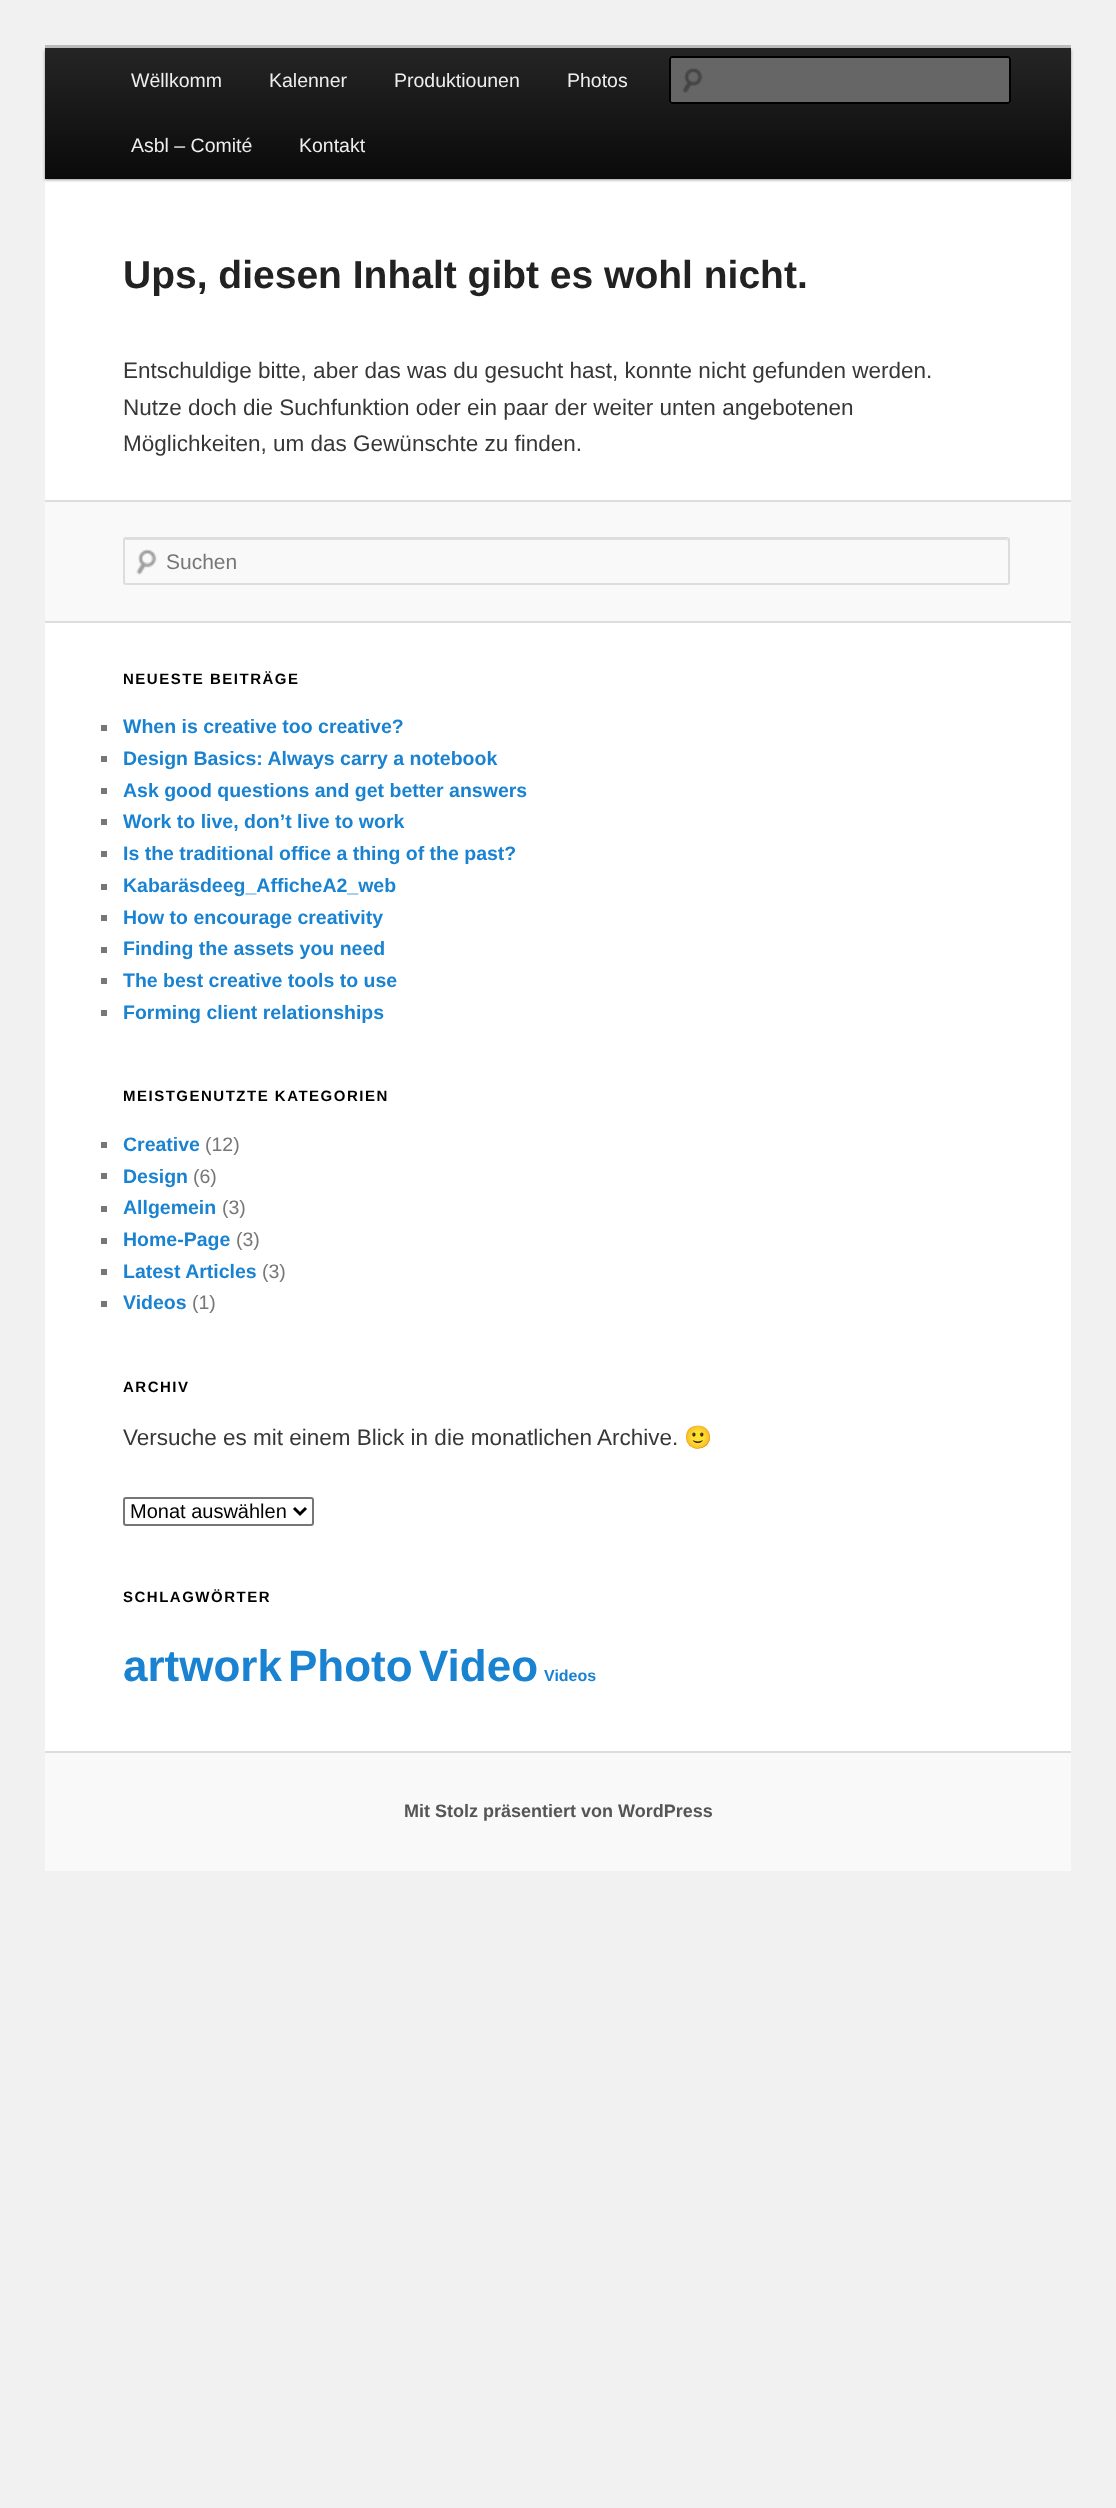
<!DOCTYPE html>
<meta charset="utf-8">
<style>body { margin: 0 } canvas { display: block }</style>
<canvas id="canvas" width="1116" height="2508"></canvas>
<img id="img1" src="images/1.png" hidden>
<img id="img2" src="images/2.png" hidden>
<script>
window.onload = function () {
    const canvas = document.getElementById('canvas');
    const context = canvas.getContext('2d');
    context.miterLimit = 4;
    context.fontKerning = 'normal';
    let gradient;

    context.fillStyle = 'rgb(241, 241, 241)';
    context.fillRect(0, 0, 1116, 2508);
    context.fillStyle = 'rgb(255, 255, 255)';
    context.fillRect(45, 179, 1026, 1572);
    context.fillStyle = 'rgb(187, 187, 187)';
    context.fillRect(45, 45, 1026, 3);
    context.fillStyle = 'rgba(0, 0, 0, 0.4)';
    context.filter = 'blur(1.5px)';
    context.beginPath();
    context.rect(45, 50, 1026, 130);
    context.fill();
    context.filter = 'none';
    gradient = context.createLinearGradient(558, 48, 558, 179);
    gradient.addColorStop(0, 'rgb(37, 37, 37)');
    gradient.addColorStop(1, 'rgb(10, 10, 10)');
    context.fillStyle = gradient;
    context.fillRect(45, 48, 1026, 131);
    context.fillStyle = 'rgb(102, 102, 102)';
    context.beginPath();
    context.roundRect(669, 56, 342, 48, 3);
    context.fill();
    context.drawImage(document.getElementById('img1'), 682, 68, 21, 25);
    context.beginPath();
    context.roundRect(670, 57, 340, 46, 2);
    context.strokeStyle = 'rgb(0, 0, 0)';
    context.lineWidth = 2;
    context.stroke();
    context.fillStyle = 'rgb(249, 249, 249)';
    context.fillRect(45, 502, 1026, 119);
    context.fillStyle = 'rgb(221, 221, 221)';
    context.fillRect(45, 500, 1026, 2);
    context.fillRect(45, 621, 1026, 2);
    context.drawImage(document.getElementById('img2'), 136, 549, 21, 26);
    context.fillStyle = 'rgb(224, 224, 224)';
    context.beginPath();
    context.moveTo(126, 540);
    context.lineTo(1006, 540);
    context.bezierCurveTo(1007, 540, 1008, 541, 1008, 542);
    context.lineTo(1008, 540);
    context.lineTo(1006, 539);
    context.lineTo(126, 539);
    context.bezierCurveTo(126, 539, 125, 540, 125, 540);
    context.closePath();
    context.fill();
    context.beginPath();
    context.roundRect(124, 538, 885, 46, 2);
    context.strokeStyle = 'rgb(221, 221, 221)';
    context.stroke();
    context.fillStyle = 'rgb(119, 119, 119)';
    context.fillRect(101, 725, 6, 6);
    context.fillRect(101, 756, 6, 6);
    context.fillRect(101, 788, 6, 6);
    context.fillRect(101, 819, 6, 6);
    context.fillRect(101, 851, 6, 6);
    context.fillRect(101, 884, 6, 6);
    context.fillRect(101, 915, 6, 6);
    context.fillRect(101, 947, 6, 6);
    context.fillRect(101, 978, 6, 6);
    context.fillRect(101, 1010, 6, 6);
    context.fillRect(101, 1142, 6, 6);
    context.fillRect(101, 1173, 6, 6);
    context.fillRect(101, 1206, 6, 6);
    context.fillRect(101, 1238, 6, 6);
    context.fillRect(101, 1269, 6, 6);
    context.fillRect(101, 1301, 6, 6);
    context.beginPath();
    context.roundRect(124, 1498, 189, 27, 2);
    context.strokeStyle = 'rgb(118, 118, 118)';
    context.stroke();
    context.beginPath();
    context.moveTo(294, 1508);
    context.lineTo(300, 1514);
    context.lineTo(306, 1508);
    context.strokeStyle = 'rgb(0, 0, 0)';
    context.lineWidth = 3;
    context.stroke();
    context.fillStyle = 'rgb(249, 249, 249)';
    context.fillRect(45, 1753, 1026, 118);
    context.fillStyle = 'rgb(221, 221, 221)';
    context.fillRect(45, 1751, 1026, 2);
    context.font = '19.5px Liberation Sans';
    context.fillStyle = 'rgb(238, 238, 238)';
    context.fillText('Wëllkomm', 131, 87);
    context.fillText('Kalenner', 269, 87);
    context.fillText('Produktiounen', 394, 87);
    context.fillText('Photos', 567, 87);
    context.fillText('Asbl – Comité', 131, 152);
    context.fillText('Kontakt', 299, 152);
    context.font = 'bold 39px Liberation Sans';
    context.fillStyle = 'rgb(34, 34, 34)';
    context.fillText('Ups, diesen Inhalt gibt es wohl nicht.', 123, 288);
    context.font = '22.5px Liberation Sans';
    context.fillStyle = 'rgb(55, 55, 55)';
    context.fillText('Entschuldige bitte, aber das was du gesucht hast, konnte nicht gefunden werden.', 123, 378);
    context.fillText('Nutze doch die Suchfunktion oder ein paar der weiter unten angebotenen', 123, 415);
    context.fillText('Möglichkeiten, um das Gewünschte zu finden.', 123, 451);
    context.font = '21px Liberation Sans';
    context.fillStyle = 'rgb(119, 119, 119)';
    context.fillText('Suchen', 166, 569);
    context.letterSpacing = '1.5px';
    context.font = 'bold 15px Liberation Sans';
    context.fillStyle = 'rgb(0, 0, 0)';
    context.fillText('NEUESTE BEITRÄGE', 123, 684);
    context.letterSpacing = '0px';
    context.font = 'bold 19.5px Liberation Sans';
    context.fillStyle = 'rgb(25, 130, 209)';
    context.fillText('When is creative too creative?', 123, 733);
    context.fillText('Design Basics: Always carry a notebook', 123, 765);
    context.fillText('Ask good questions and get better answers', 123, 797);
    context.fillText('Work to live, don’t live to work', 123, 828);
    context.fillText('Is the traditional office a thing of the past?', 123, 860);
    context.fillText('Kabaräsdeeg_AfficheA2_web', 123, 892);
    context.fillText('How to encourage creativity', 123, 924);
    context.fillText('Finding the assets you need', 123, 955);
    context.fillText('The best creative tools to use', 123, 987);
    context.fillText('Forming client relationships', 123, 1019);
    context.letterSpacing = '1.5px';
    context.font = 'bold 15px Liberation Sans';
    context.fillStyle = 'rgb(0, 0, 0)';
    context.fillText('MEISTGENUTZTE KATEGORIEN', 123, 1101);
    context.letterSpacing = '0px';
    context.font = 'bold 19.5px Liberation Sans';
    context.fillStyle = 'rgb(25, 130, 209)';
    context.fillText('Creative', 123, 1151);
    context.font = '19.5px Liberation Sans';
    context.fillStyle = 'rgb(119, 119, 119)';
    context.fillText('(12)', 205, 1151);
    context.font = 'bold 19.5px Liberation Sans';
    context.fillStyle = 'rgb(25, 130, 209)';
    context.fillText('Design', 123, 1183);
    context.font = '19.5px Liberation Sans';
    context.fillStyle = 'rgb(119, 119, 119)';
    context.fillText('(6)', 193, 1183);
    context.font = 'bold 19.5px Liberation Sans';
    context.fillStyle = 'rgb(25, 130, 209)';
    context.fillText('Allgemein', 123, 1214);
    context.font = '19.5px Liberation Sans';
    context.fillStyle = 'rgb(119, 119, 119)';
    context.fillText('(3)', 222, 1214);
    context.font = 'bold 19.5px Liberation Sans';
    context.fillStyle = 'rgb(25, 130, 209)';
    context.fillText('Home-Page', 123, 1246);
    context.font = '19.5px Liberation Sans';
    context.fillStyle = 'rgb(119, 119, 119)';
    context.fillText('(3)', 236, 1246);
    context.font = 'bold 19.5px Liberation Sans';
    context.fillStyle = 'rgb(25, 130, 209)';
    context.fillText('Latest Articles', 123, 1278);
    context.font = '19.5px Liberation Sans';
    context.fillStyle = 'rgb(119, 119, 119)';
    context.fillText('(3)', 262, 1278);
    context.font = 'bold 19.5px Liberation Sans';
    context.fillStyle = 'rgb(25, 130, 209)';
    context.fillText('Videos', 123, 1309);
    context.font = '19.5px Liberation Sans';
    context.fillStyle = 'rgb(119, 119, 119)';
    context.fillText('(1)', 192, 1309);
    context.letterSpacing = '1.5px';
    context.font = 'bold 15px Liberation Sans';
    context.fillStyle = 'rgb(0, 0, 0)';
    context.fillText('ARCHIV', 123, 1392);
    context.letterSpacing = '0px';
    context.font = '22.5px Liberation Sans';
    context.fillStyle = 'rgb(55, 55, 55)';
    context.fillText('Versuche es mit einem Blick in die monatlichen Archive.', 123, 1445);
    context.font = '22.5px Noto Color Emoji';
    context.fillText('🙂', 684, 1445);
    context.font = '20px Liberation Sans';
    context.fillStyle = 'rgb(0, 0, 0)';
    context.fillText('Monat auswählen', 130, 1518);
    context.letterSpacing = '1.5px';
    context.font = 'bold 15px Liberation Sans';
    context.fillText('SCHLAGWÖRTER', 123, 1602);
    context.letterSpacing = '0px';
    context.font = 'bold 44px Liberation Sans';
    context.fillStyle = 'rgb(25, 130, 209)';
    context.fillText('artwork', 123, 1681);
    context.fillText('Photo', 288, 1681);
    context.fillText('Video', 419, 1681);
    context.font = 'bold 16px Liberation Sans';
    context.fillText('Videos', 544, 1681);
    context.font = 'bold 18px Liberation Sans';
    context.fillStyle = 'rgb(85, 85, 85)';
    context.fillText('Mit Stolz präsentiert von WordPress', 404, 1817);
};
</script>
